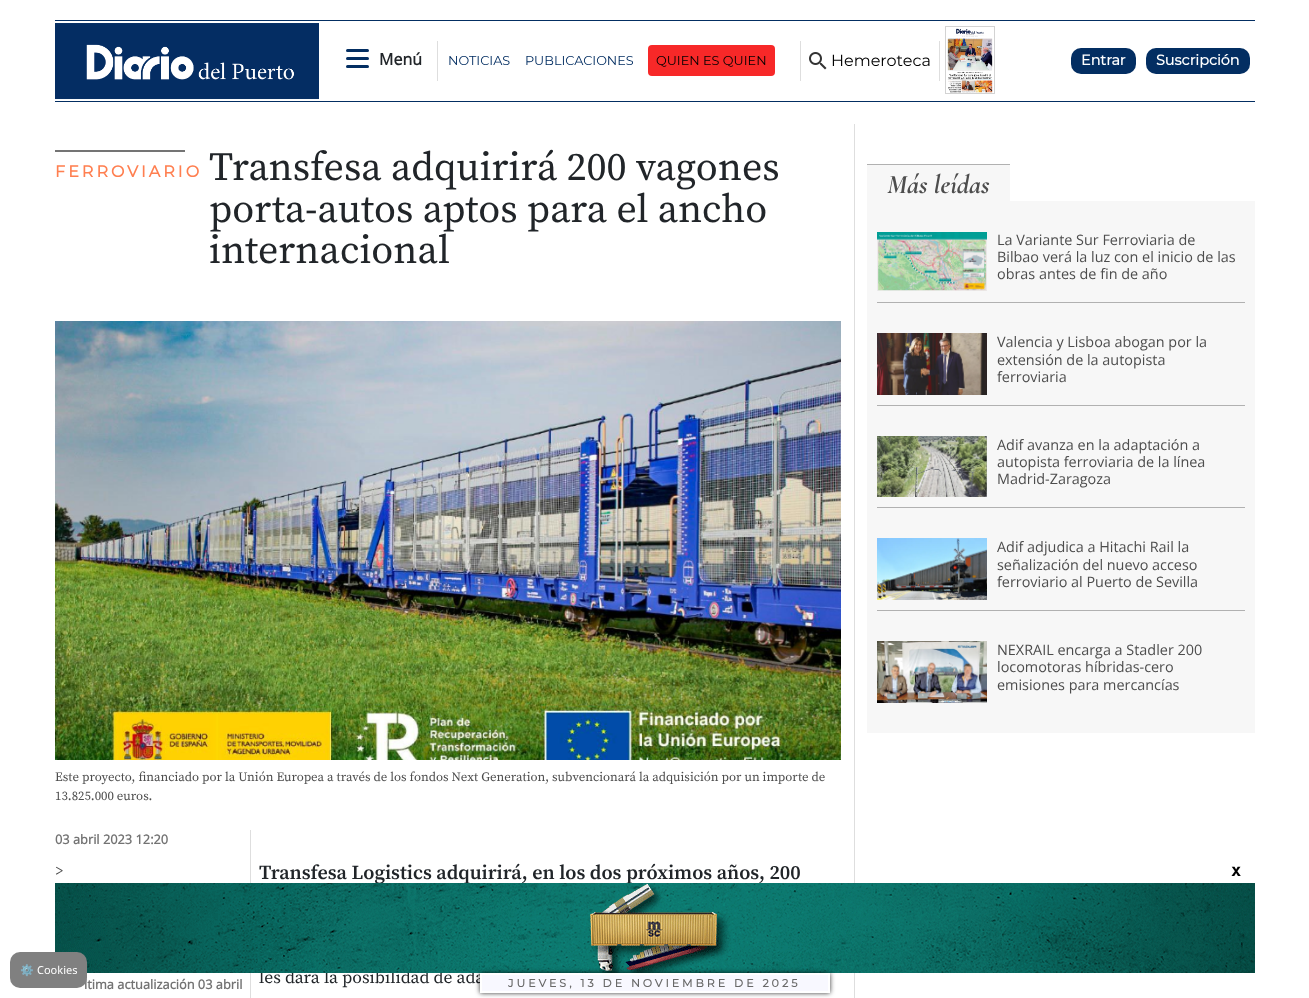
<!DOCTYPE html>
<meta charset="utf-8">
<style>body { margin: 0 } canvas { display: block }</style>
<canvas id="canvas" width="1309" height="998"></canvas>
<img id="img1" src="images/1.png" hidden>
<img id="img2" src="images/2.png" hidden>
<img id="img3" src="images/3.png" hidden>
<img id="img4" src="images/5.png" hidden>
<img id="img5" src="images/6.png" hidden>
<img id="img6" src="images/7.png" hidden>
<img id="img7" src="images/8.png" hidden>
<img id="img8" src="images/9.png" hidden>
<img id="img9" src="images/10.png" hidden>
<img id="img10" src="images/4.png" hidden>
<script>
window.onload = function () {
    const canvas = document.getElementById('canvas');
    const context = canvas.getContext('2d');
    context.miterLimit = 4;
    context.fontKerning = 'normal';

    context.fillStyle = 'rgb(255, 255, 255)';
    context.fillRect(0, 0, 1309, 998);
    context.fillStyle = 'rgb(3, 46, 98)';
    context.fillRect(55, 20, 1200, 1);
    context.fillRect(55, 101, 1200, 1);
    context.drawImage(document.getElementById('img1'), 55, 23, 264, 77);
    context.beginPath();
    context.roundRect(346, 49, 23, 3, 1.5);
    context.fill();
    context.beginPath();
    context.roundRect(346, 57, 23, 3, 1.5);
    context.fill();
    context.beginPath();
    context.roundRect(346, 65, 23, 3, 1.5);
    context.fill();
    context.fillStyle = 'rgb(222, 222, 222)';
    context.fillRect(437, 41, 1, 40);
    context.fillRect(800, 41, 1, 40);
    context.fillStyle = 'rgb(247, 40, 40)';
    context.beginPath();
    context.roundRect(648, 45, 8, 31, [4, 0, 0, 4]);
    context.fill();
    context.fillRect(656, 45, 111, 31);
    context.beginPath();
    context.roundRect(767, 45, 8, 31, [0, 4, 4, 0]);
    context.fill();
    context.drawImage(document.getElementById('img2'), 809, 52, 18, 18);
    context.fillStyle = 'rgb(222, 222, 222)';
    context.fillRect(939, 41, 1, 40);
    context.strokeStyle = 'rgb(211, 211, 211)';
    context.strokeRect(945.5, 26.5, 49, 67);
    context.drawImage(document.getElementById('img3'), 947, 28, 46, 65);
    context.fillStyle = 'rgb(3, 46, 98)';
    context.beginPath();
    context.roundRect(1071, 48, 65, 26, 10);
    context.fill();
    context.beginPath();
    context.roundRect(1146, 48, 104, 26, 10);
    context.fill();
    context.fillStyle = 'rgb(222, 222, 222)';
    context.fillRect(854, 124, 1, 874);
    context.fillStyle = 'rgb(116, 116, 116)';
    context.fillRect(55, 150, 130, 2);
    context.drawImage(document.getElementById('img4'), 55, 321, 786, 439);
    context.fillStyle = 'rgb(222, 222, 222)';
    context.fillRect(250, 830, 1, 168);
    context.fillStyle = 'rgb(247, 247, 247)';
    context.fillRect(867, 165, 143, 36);
    context.fillStyle = 'rgb(177, 177, 177)';
    context.fillRect(867, 164, 143, 1);
    context.fillStyle = 'rgb(247, 247, 247)';
    context.fillRect(867, 201, 388, 532);
    context.fillStyle = 'rgb(177, 177, 177)';
    context.fillRect(877, 302, 368, 1);
    context.drawImage(document.getElementById('img5'), 877, 232, 110, 59);
    context.fillRect(877, 405, 368, 1);
    context.drawImage(document.getElementById('img6'), 877, 333, 110, 62);
    context.fillRect(877, 507, 368, 1);
    context.drawImage(document.getElementById('img7'), 877, 436, 110, 61);
    context.fillRect(877, 610, 368, 1);
    context.drawImage(document.getElementById('img8'), 877, 538, 110, 62);
    context.drawImage(document.getElementById('img9'), 877, 641, 110, 62);
    context.font = 'bold 16px Open Sans';
    context.fillStyle = 'rgb(33, 37, 41)';
    context.fillText('Menú', 379, 65);
    context.font = '100 12.8px Montserrat';
    context.fillStyle = 'rgb(3, 46, 98)';
    context.fillText('NOTICIAS', 448, 65);
    context.fillText('PUBLICACIONES', 525, 65);
    context.fillStyle = 'rgb(0, 0, 0)';
    context.fillText('QUIEN ES QUIEN', 656, 65);
    context.font = '100 16px Montserrat';
    context.fillText('Hemeroteca', 831, 66);
    context.font = 'bold 14.4px Montserrat';
    context.fillStyle = 'rgb(255, 255, 255)';
    context.fillText('Entrar', 1081, 65);
    context.fillText('Suscripción', 1156, 65);
    context.font = '16px Source Serif Pro';
    context.fillStyle = 'rgb(77, 77, 77)';
    context.fillText('>', 55, 876);
    context.font = 'bold 17px DejaVu Sans Mono';
    context.fillStyle = 'rgb(0, 0, 0)';
    context.fillText('x', 1231, 876);
    context.letterSpacing = '3px';
    context.font = 'bold 16px Montserrat';
    context.fillStyle = 'rgb(255, 127, 80)';
    context.fillText('FERROVIARIO', 55, 177);
    context.letterSpacing = '0px';
    context.font = '40px Source Serif Pro';
    context.fillStyle = 'rgb(33, 37, 41)';
    context.fillText('Transfesa adquirirá 200 vagones', 209, 180);
    context.fillText('porta-autos aptos para el ancho', 209, 222);
    context.fillText('internacional', 209, 263);
    context.font = '12.8px Source Serif Pro';
    context.fillStyle = 'rgb(77, 77, 77)';
    context.fillText('Este proyecto, financiado por la Unión Europea a través de los fondos Next Generation, subvencionará la adquisición por un importe de', 55, 781);
    context.fillText('13.825.000 euros.', 55, 800);
    context.font = 'bold 12.8px Open Sans';
    context.fillStyle = 'rgb(115, 115, 115)';
    context.fillText('03 abril 2023 12:20', 55, 844);
    context.fillText('ltima actualización 03 abril', 84, 989);
    context.font = '600 20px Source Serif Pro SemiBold';
    context.fillStyle = 'rgb(33, 37, 41)';
    context.fillText('Transfesa Logistics adquirirá, en los dos próximos años, 200', 259, 879);
    context.font = '17.6px Source Serif Pro';
    context.fillText('les dará la posibilidad de ada', 259, 983);
    context.drawImage(document.getElementById('img10'), 55, 883, 1200, 90);
    context.fillStyle = 'rgb(128, 128, 128)';
    context.beginPath();
    context.roundRect(10, 952, 77, 36, 10);
    context.fill();
    context.font = '11px Noto Sans';
    context.fillStyle = 'rgb(255, 255, 255)';
    context.fillText('Cookies', 37, 974);
    context.font = '11px Noto Color Emoji';
    context.fillText('⚙', 20, 974);
    context.fillStyle = 'rgba(0, 0, 0, 0.8)';
    context.filter = 'blur(2.5px)';
    context.beginPath();
    context.rect(480, 973, 350, 20);
    context.fill();
    context.filter = 'none';
    context.fillStyle = 'rgb(248, 248, 255)';
    context.beginPath();
    context.rect(481, 974, 348, 18);
    context.fill();
    context.strokeStyle = 'rgb(255, 255, 255)';
    context.lineWidth = 2;
    context.stroke();
    context.letterSpacing = '3px';
    context.font = 'bold 11px Montserrat';
    context.fillStyle = 'rgb(105, 105, 105)';
    context.fillText('JUEVES, 13 DE NOVIEMBRE DE 2025', 508, 987);
    context.letterSpacing = '0px';
    context.font = 'italic 300 27px Cormorant Garamond';
    context.fillStyle = 'rgb(77, 77, 77)';
    context.fillText('Más leídas', 887, 193);
    context.font = '14.4px Open Sans';
    context.fillText('La Variante Sur Ferroviaria de', 997, 245);
    context.fillText('Bilbao verá la luz con el inicio de las', 997, 262);
    context.fillText('obras antes de fin de año', 997, 279);
    context.fillText('Valencia y Lisboa abogan por la', 997, 347);
    context.fillText('extensión de la autopista', 997, 365);
    context.fillText('ferroviaria', 997, 382);
    context.fillText('Adif avanza en la adaptación a', 997, 450);
    context.fillText('autopista ferroviaria de la línea', 997, 467);
    context.fillText('Madrid-Zaragoza', 997, 484);
    context.fillText('Adif adjudica a Hitachi Rail la', 997, 552);
    context.fillText('señalización del nuevo acceso', 997, 570);
    context.fillText('ferroviario al Puerto de Sevilla', 997, 587);
    context.fillText('NEXRAIL encarga a Stadler 200', 997, 655);
    context.fillText('locomotoras híbridas-cero', 997, 672);
    context.fillText('emisiones para mercancías', 997, 690);
};
</script>
